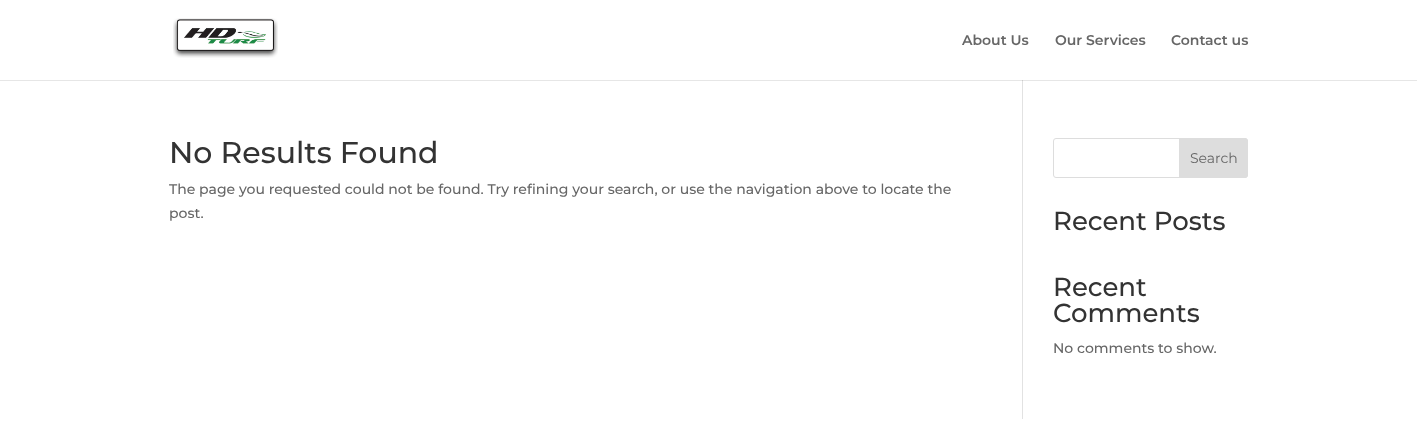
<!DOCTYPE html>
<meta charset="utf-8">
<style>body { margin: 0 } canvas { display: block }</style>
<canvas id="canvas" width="1417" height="437"></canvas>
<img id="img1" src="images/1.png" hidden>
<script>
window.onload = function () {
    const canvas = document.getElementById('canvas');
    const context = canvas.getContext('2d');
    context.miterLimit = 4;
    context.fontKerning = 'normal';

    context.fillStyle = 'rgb(255, 255, 255)';
    context.fillRect(0, 0, 1417, 437);
    context.fillStyle = 'rgb(230, 230, 230)';
    context.fillRect(0, 80, 1417, 1);
    context.drawImage(document.getElementById('img1'), 173, 18, 105, 40);
    context.fillStyle = 'rgb(226, 226, 226)';
    context.fillRect(1022, 80, 1, 339);
    context.fillStyle = 'rgb(203, 203, 203)';
    context.fillRect(1022, 80, 1, 1);
    context.beginPath();
    context.roundRect(1053.5, 138.5, 194, 39, 2.5);
    context.strokeStyle = 'rgb(221, 221, 221)';
    context.stroke();
    context.fillStyle = 'rgb(221, 221, 221)';
    context.beginPath();
    context.roundRect(1179.5, 138.5, 68, 39, [0, 2.5, 2.5, 0]);
    context.fill();
    context.stroke();
    context.font = '600 14px Montserrat';
    context.fillStyle = 'rgb(102, 102, 102)';
    context.fillText('About Us', 962, 45);
    context.fillText('Our Services', 1055, 45);
    context.fillText('Contact us', 1171, 45);
    context.font = '500 30px Montserrat';
    context.fillStyle = 'rgb(51, 51, 51)';
    context.fillText('No Results Found', 169, 163);
    context.font = '500 14px Montserrat';
    context.fillStyle = 'rgb(102, 102, 102)';
    context.fillText('The page you requested could not be found. Try refining your search, or use the navigation above to locate the', 169, 194);
    context.fillText('post.', 169, 218);
    context.font = '14px Montserrat';
    context.fillText('Search', 1190, 163);
    context.font = '500 26px Montserrat';
    context.fillStyle = 'rgb(51, 51, 51)';
    context.fillText('Recent Posts', 1053, 230);
    context.fillText('Recent', 1053, 296);
    context.fillText('Comments', 1053, 322);
    context.font = '500 14px Montserrat';
    context.fillStyle = 'rgb(102, 102, 102)';
    context.fillText('No comments to show.', 1053, 353);
};
</script>
